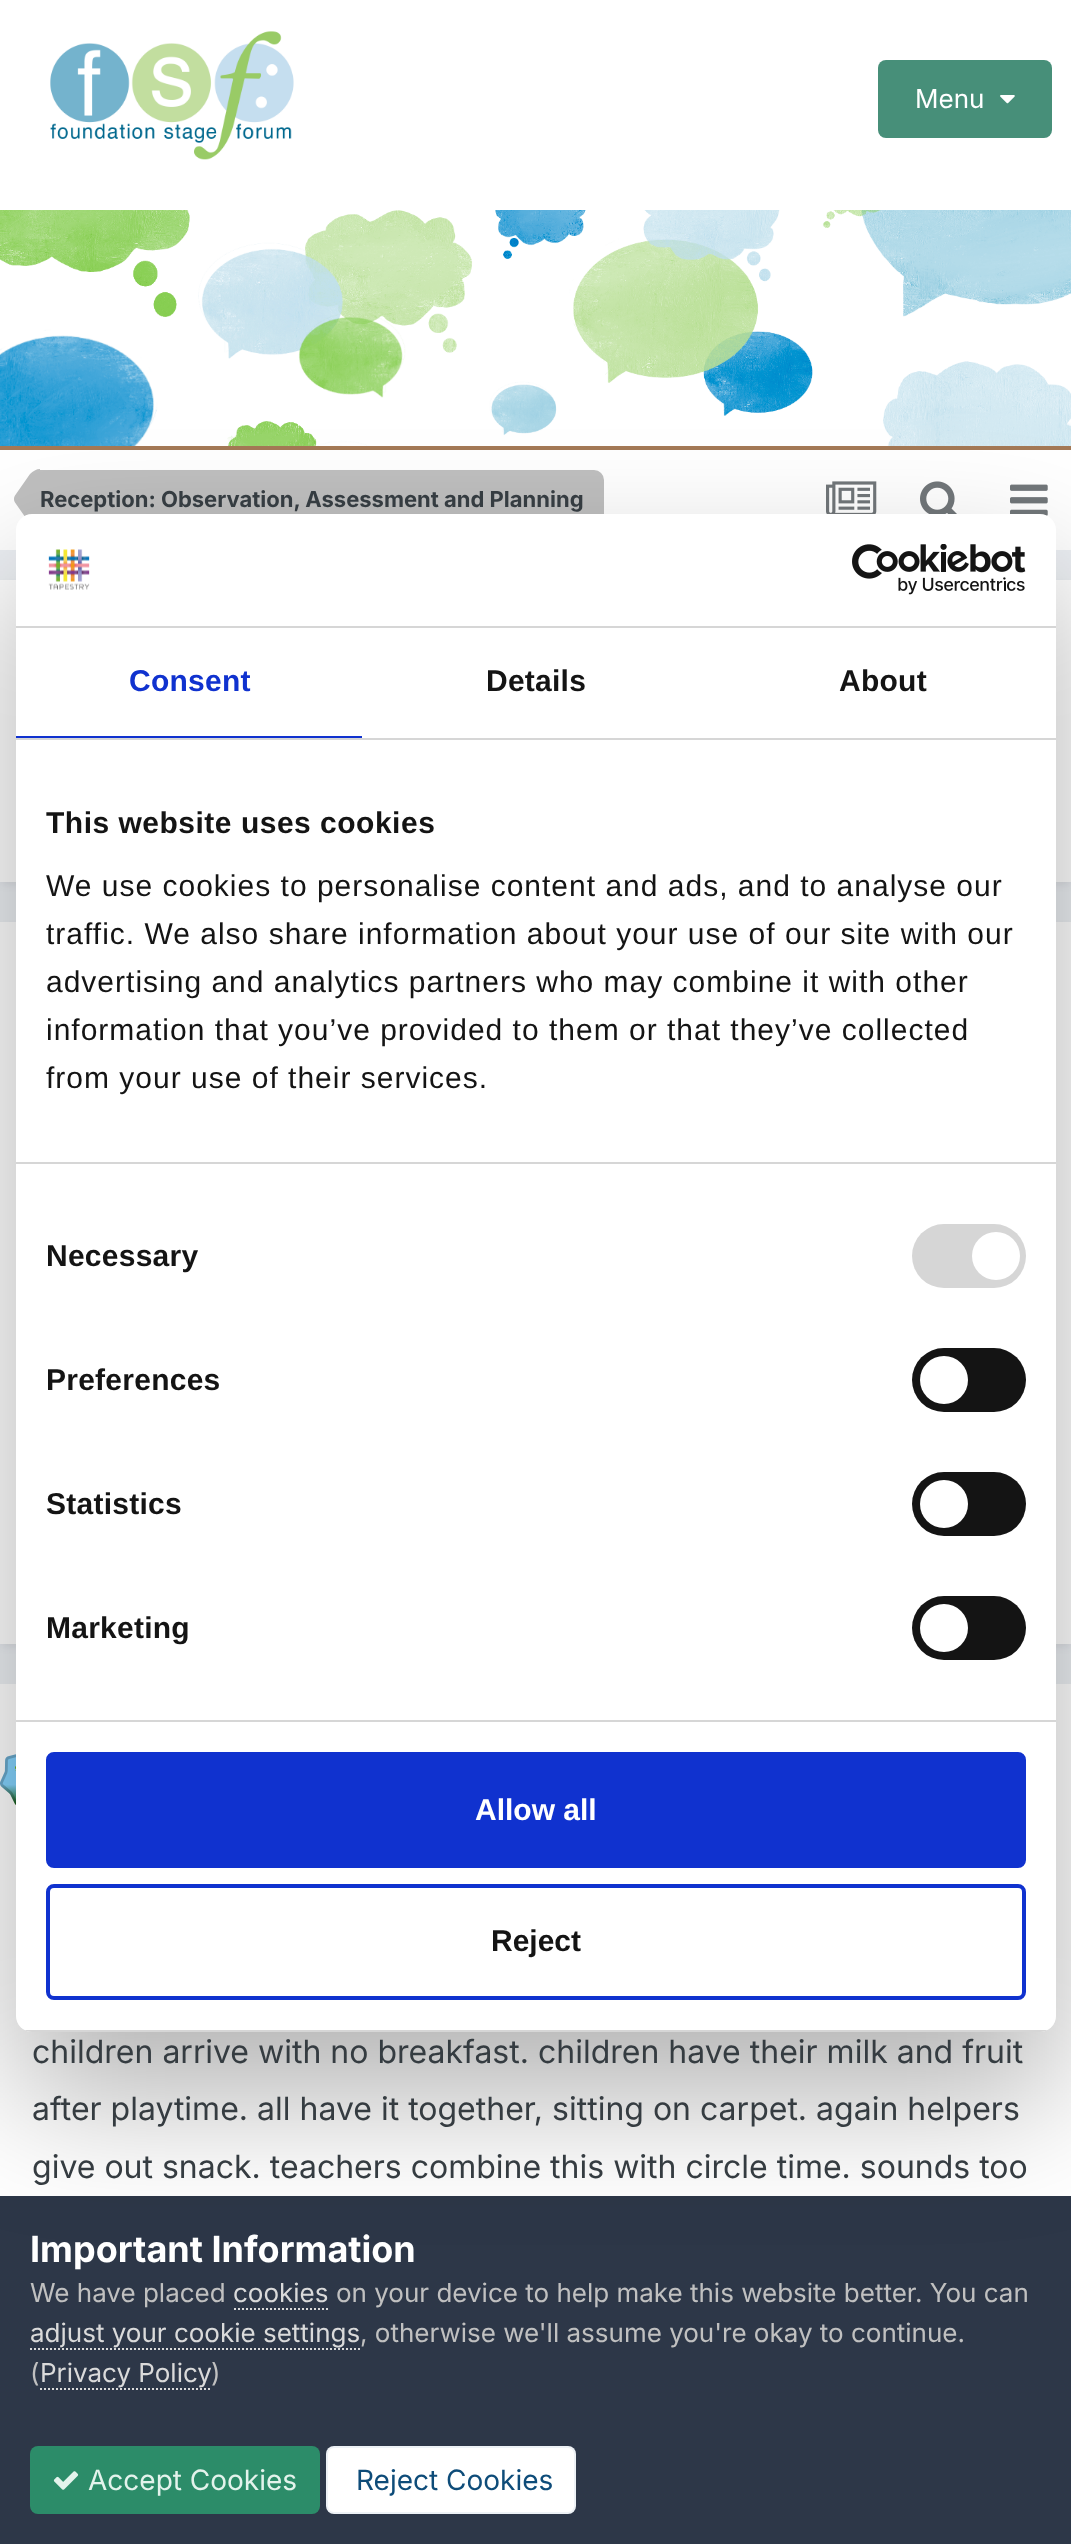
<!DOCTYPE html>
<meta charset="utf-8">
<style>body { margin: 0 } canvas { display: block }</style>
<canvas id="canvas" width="1071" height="2544"></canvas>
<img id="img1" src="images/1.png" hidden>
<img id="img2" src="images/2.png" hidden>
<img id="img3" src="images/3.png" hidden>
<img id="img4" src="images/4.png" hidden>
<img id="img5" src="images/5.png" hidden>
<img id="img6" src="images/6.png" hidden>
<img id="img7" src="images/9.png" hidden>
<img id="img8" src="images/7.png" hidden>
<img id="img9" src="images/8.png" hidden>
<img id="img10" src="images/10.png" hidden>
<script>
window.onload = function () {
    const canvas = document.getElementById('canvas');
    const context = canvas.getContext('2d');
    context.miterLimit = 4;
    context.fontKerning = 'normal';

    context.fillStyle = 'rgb(237, 240, 244)';
    context.fillRect(0, 0, 1071, 2544);
    context.fillStyle = 'rgb(255, 255, 255)';
    context.fillRect(0, 0, 1071, 210);
    context.drawImage(document.getElementById('img1'), 50, 31, 244, 129);
    context.fillStyle = 'rgb(71, 143, 121)';
    context.beginPath();
    context.roundRect(878, 60, 174, 78, 8);
    context.fill();
    context.drawImage(document.getElementById('img2'), 1000, 95, 15, 9);
    context.drawImage(document.getElementById('img3'), 0, 210, 1071, 236);
    context.fillStyle = 'rgb(164, 121, 86)';
    context.fillRect(0, 446, 1071, 4);
    context.fillStyle = 'rgb(255, 255, 255)';
    context.fillRect(0, 450, 1071, 100);
    context.fillStyle = 'rgb(191, 191, 191)';
    context.beginPath();
    context.roundRect(40, 470, 564, 60, [0, 10, 10, 0]);
    context.fill();
    context.beginPath();
    context.moveTo(40, 499);
    context.lineTo(40, 529);
    context.bezierCurveTo(36.5, 529, 33, 527, 30, 524);
    context.lineTo(15, 502.5);
    context.bezierCurveTo(14.5, 501.5, 14, 500.5, 14, 499);
    context.closePath();
    context.moveTo(40, 499);
    context.lineTo(14, 499);
    context.bezierCurveTo(14, 497.5, 14.5, 496.5, 15, 495.5);
    context.lineTo(30, 474);
    context.bezierCurveTo(33, 471, 36.5, 469, 40, 469);
    context.closePath();
    context.fill();
    context.drawImage(document.getElementById('img4'), 826, 481, 51, 33);
    context.drawImage(document.getElementById('img5'), 920, 481, 37, 33);
    context.drawImage(document.getElementById('img6'), 1010, 484, 38, 32);
    context.fillStyle = 'rgba(45, 55, 72, 0.1)';
    context.filter = 'blur(4px)';
    context.beginPath();
    context.rect(2, 586, 1068, 298);
    context.fill();
    context.filter = 'none';
    context.fillStyle = 'rgb(255, 255, 255)';
    context.fillRect(0, 580, 1071, 302);
    context.fillStyle = 'rgba(45, 55, 72, 0.1)';
    context.filter = 'blur(4px)';
    context.beginPath();
    context.rect(2, 928, 1068, 718);
    context.fill();
    context.filter = 'none';
    context.fillStyle = 'rgb(255, 255, 255)';
    context.fillRect(0, 922, 1071, 722);
    context.fillRect(0, 1684, 1071, 512);
    context.drawImage(document.getElementById('img7'), 0, 1748, 16, 58);
    context.fillStyle = 'rgb(45, 55, 72)';
    context.fillRect(0, 2196, 1071, 348);
    context.fillStyle = 'rgba(0, 0, 0, 0.3)';
    context.filter = 'blur(68px)';
    context.beginPath();
    context.roundRect(16, 578, 1040, 1518, 16);
    context.fill();
    context.filter = 'none';
    context.fillStyle = 'rgb(255, 255, 255)';
    context.beginPath();
    context.roundRect(16, 514, 1040, 1518, 16);
    context.fill();
    context.fillStyle = 'rgb(214, 214, 214)';
    context.fillRect(16, 626, 1040, 2);
    context.drawImage(document.getElementById('img8'), 48, 549, 42, 41);
    context.drawImage(document.getElementById('img9'), 852, 544, 174, 51);
    context.fillRect(16, 738, 1040, 2);
    context.fillStyle = 'rgb(16, 50, 207)';
    context.fillRect(16, 736, 346, 2);
    context.fillStyle = 'rgb(214, 214, 214)';
    context.fillRect(16, 1162, 1040, 2);
    context.fillRect(16, 1720, 1040, 2);
    context.beginPath();
    context.roundRect(912, 1224, 114, 64, 32);
    context.fill();
    context.fillStyle = 'rgb(255, 255, 255)';
    context.beginPath();
    context.arc(996, 1256, 24, 0, 2 * Math.PI);
    context.fill();
    context.fillStyle = 'rgb(20, 20, 20)';
    context.beginPath();
    context.roundRect(912, 1348, 114, 64, 32);
    context.fill();
    context.fillStyle = 'rgb(255, 255, 255)';
    context.beginPath();
    context.arc(944, 1380, 24, 0, 2 * Math.PI);
    context.fill();
    context.fillStyle = 'rgb(20, 20, 20)';
    context.beginPath();
    context.roundRect(912, 1472, 114, 64, 32);
    context.fill();
    context.fillStyle = 'rgb(255, 255, 255)';
    context.beginPath();
    context.arc(944, 1504, 24, 0, 2 * Math.PI);
    context.fill();
    context.fillStyle = 'rgb(20, 20, 20)';
    context.beginPath();
    context.roundRect(912, 1596, 114, 64, 32);
    context.fill();
    context.fillStyle = 'rgb(255, 255, 255)';
    context.beginPath();
    context.arc(944, 1628, 24, 0, 2 * Math.PI);
    context.fill();
    context.save();
    context.beginPath();
    context.roundRect(16, 514, 1040, 1518, 16);
    context.clip();
    context.fillStyle = 'rgb(214, 214, 214)';
    context.fillRect(16, 2030, 1040, 2);
    context.restore();
    context.fillStyle = 'rgb(16, 50, 207)';
    context.beginPath();
    context.roundRect(48, 1754, 976, 112, 6);
    context.fill();
    context.strokeStyle = 'rgb(16, 50, 207)';
    context.lineWidth = 4;
    context.stroke();
    context.beginPath();
    context.roundRect(48, 1886, 976, 112, 6);
    context.stroke();
    context.beginPath();
    context.moveTo(234, 2309);
    context.lineTo(328, 2309);
    context.strokeStyle = 'rgb(218, 218, 218)';
    context.lineWidth = 2;
    context.setLineDash([2, 2]);
    context.stroke();
    context.beginPath();
    context.moveTo(30, 2349);
    context.lineTo(360, 2349);
    context.stroke();
    context.beginPath();
    context.moveTo(40, 2389);
    context.lineTo(212, 2389);
    context.stroke();
    context.fillStyle = 'rgb(44, 140, 105)';
    context.beginPath();
    context.roundRect(30, 2446, 290, 68, 8);
    context.fill();
    context.drawImage(document.getElementById('img10'), 53, 2471, 26, 19);
    context.fillStyle = 'rgb(255, 255, 255)';
    context.beginPath();
    context.roundRect(326, 2446, 250, 68, 8);
    context.fill();
    context.beginPath();
    context.roundRect(327, 2447, 248, 66, 7);
    context.strokeStyle = 'rgba(14, 76, 121, 0.07)';
    context.setLineDash([]);
    context.stroke();
    context.font = '26px Inter';
    context.fillText('Menu', 915, 108);
    context.font = 'bold 22px Inter';
    context.fillStyle = 'rgb(53, 60, 65)';
    context.fillText('Reception: Observation, Assessment and Planning', 40, 507);
    context.letterSpacing = '0.25px';
    context.font = 'bold 30px Liberation Sans';
    context.fillStyle = 'rgb(16, 50, 207)';
    context.fillText('Consent', 129, 691);
    context.fillStyle = 'rgb(20, 20, 20)';
    context.fillText('Details', 486, 691);
    context.fillText('About', 839, 691);
    context.letterSpacing = '0.5px';
    context.fillText('This website uses cookies', 46, 833);
    context.letterSpacing = '1px';
    context.font = '30px Liberation Sans';
    context.fillText('We use cookies to personalise content and ads, and to analyse our', 46, 896);
    context.fillText('traffic. We also share information about your use of our site with our', 46, 944);
    context.fillText('advertising and analytics partners who may combine it with other', 46, 992);
    context.fillText('information that you’ve provided to them or that they’ve collected', 46, 1040);
    context.fillText('from your use of their services.', 46, 1088);
    context.letterSpacing = '0.25px';
    context.font = 'bold 30px Liberation Sans';
    context.fillText('Necessary', 46, 1266);
    context.fillText('Preferences', 46, 1390);
    context.fillText('Statistics', 46, 1514);
    context.fillText('Marketing', 46, 1638);
    context.letterSpacing = '0px';
    context.fillStyle = 'rgb(255, 255, 255)';
    context.fillText('Allow all', 475, 1820);
    context.fillStyle = 'rgb(20, 20, 20)';
    context.fillText('Reject', 491, 1951);
    context.font = '32px Inter';
    context.fillStyle = 'rgb(53, 60, 65)';
    context.fillText('children arrive with no breakfast. children have their milk and fruit', 32, 2063);
    context.fillText('after playtime. all have it together, sitting on carpet. again helpers', 32, 2120);
    context.fillText('give out snack. teachers combine this with circle time. sounds too', 32, 2178);
    context.font = 'bold 36px Inter';
    context.fillStyle = 'rgb(255, 255, 255)';
    context.fillText('Important Information', 30, 2262);
    context.font = '26px Inter';
    context.fillStyle = 'rgb(192, 192, 192)';
    context.fillText('We have placed', 30, 2302);
    context.fillStyle = 'rgb(218, 218, 218)';
    context.fillText('cookies', 233, 2302);
    context.fillStyle = 'rgb(192, 192, 192)';
    context.fillText('on your device to help make this website better. You can', 336, 2302);
    context.fillStyle = 'rgb(218, 218, 218)';
    context.fillText('adjust your cookie settings', 30, 2342);
    context.fillStyle = 'rgb(192, 192, 192)';
    context.fillText(', otherwise we\'ll assume you\'re okay to continue.', 360, 2342);
    context.fillText('(', 30, 2382);
    context.fillStyle = 'rgb(218, 218, 218)';
    context.fillText('Privacy Policy', 40, 2382);
    context.fillStyle = 'rgb(192, 192, 192)';
    context.fillText(')', 211, 2382);
    context.font = '28px Inter';
    context.fillStyle = 'rgb(227, 243, 236)';
    context.fillText('Accept Cookies', 88, 2490);
    context.fillStyle = 'rgb(14, 76, 121)';
    context.fillText('Reject Cookies', 356, 2490);
};
</script>
